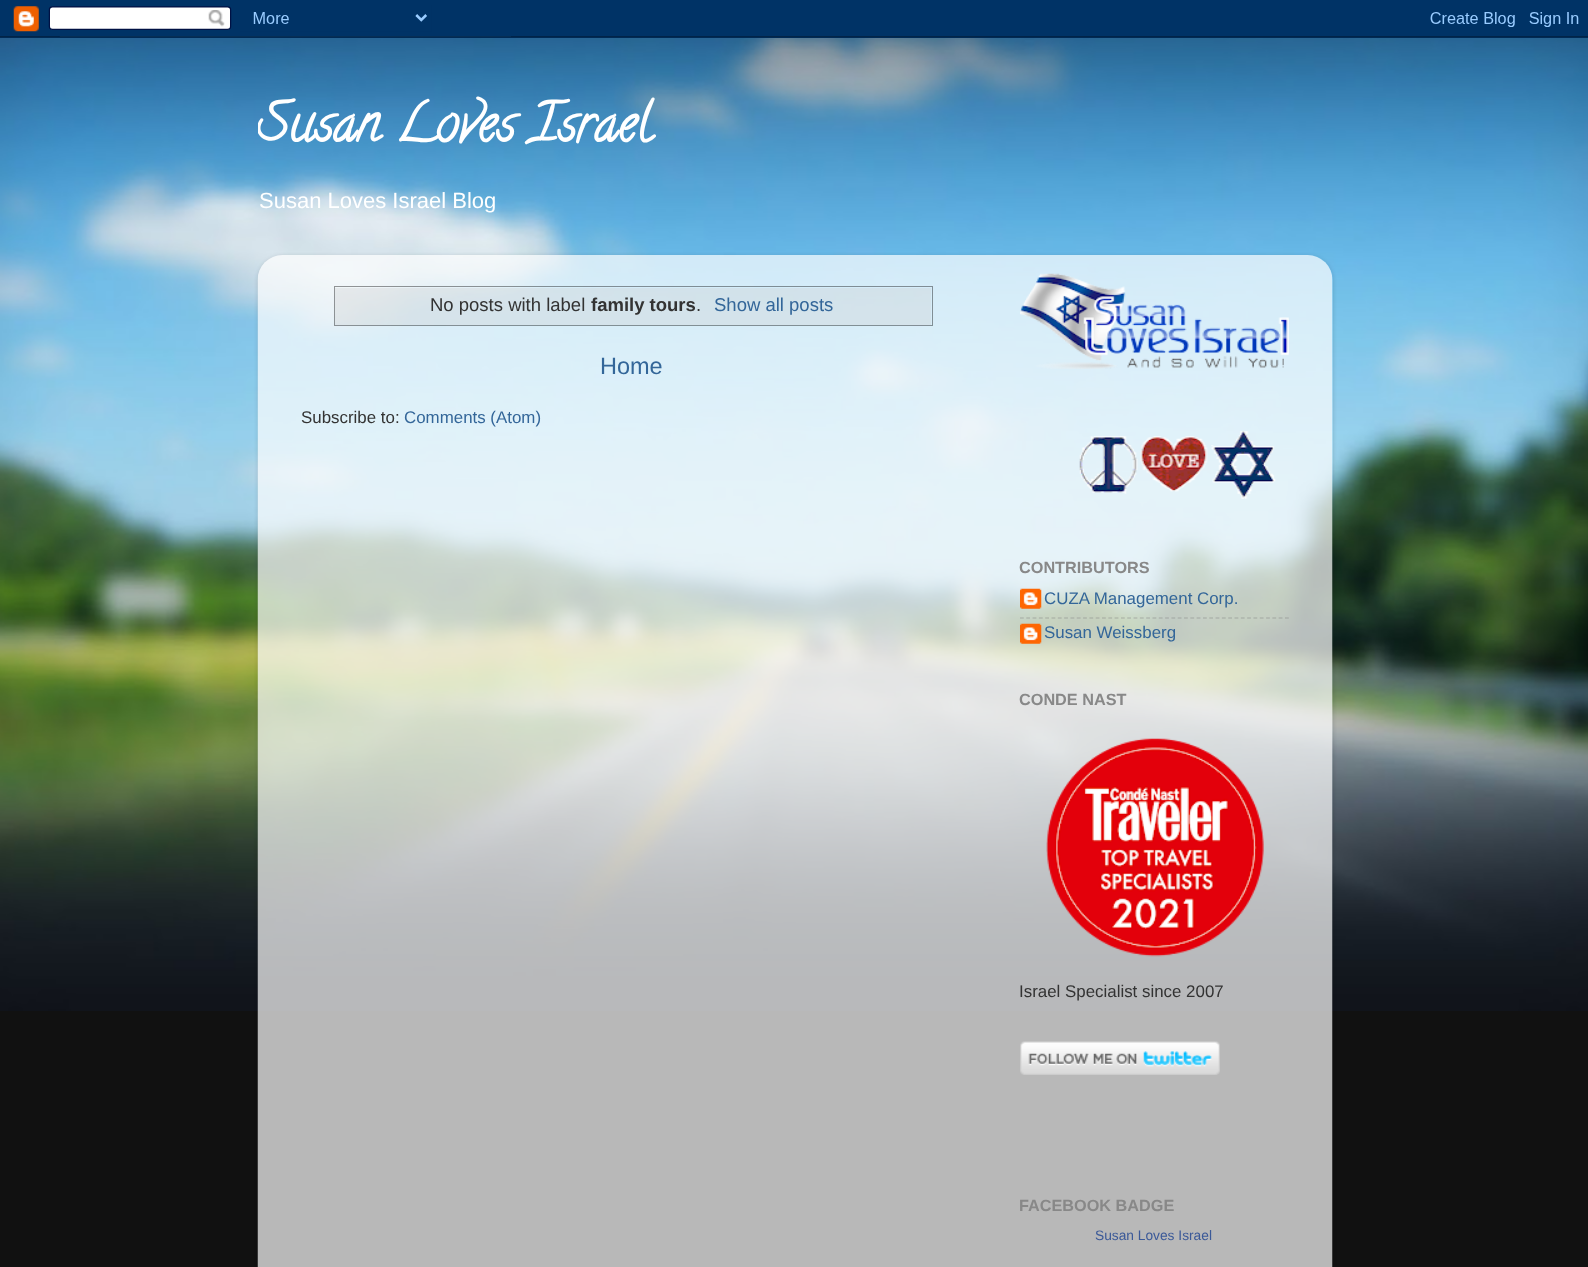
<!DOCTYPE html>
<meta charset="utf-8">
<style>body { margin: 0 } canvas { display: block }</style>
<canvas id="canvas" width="1588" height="1267"></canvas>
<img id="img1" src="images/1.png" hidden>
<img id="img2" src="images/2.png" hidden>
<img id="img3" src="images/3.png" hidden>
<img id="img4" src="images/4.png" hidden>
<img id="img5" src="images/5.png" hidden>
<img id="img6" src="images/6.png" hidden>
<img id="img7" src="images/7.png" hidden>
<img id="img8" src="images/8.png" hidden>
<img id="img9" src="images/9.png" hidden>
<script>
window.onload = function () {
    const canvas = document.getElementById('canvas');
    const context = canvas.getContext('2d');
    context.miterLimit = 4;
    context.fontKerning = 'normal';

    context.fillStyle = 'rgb(17, 17, 17)';
    context.fillRect(0, 0, 1588, 1267);
    context.drawImage(document.getElementById('img1'), 0, 36, 1588, 975);
    context.drawImage(document.getElementById('img2'), 0, 0, 1588, 38);
    context.save();
    context.beginPath();
    context.moveTo(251, 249);
    context.lineTo(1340, 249);
    context.lineTo(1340, 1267);
    context.lineTo(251, 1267);
    context.closePath();
    context.moveTo(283, 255);
    context.lineTo(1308, 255);
    context.bezierCurveTo(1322, 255, 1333, 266, 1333, 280);
    context.lineTo(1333, 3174);
    context.lineTo(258, 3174);
    context.lineTo(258, 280);
    context.bezierCurveTo(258, 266, 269, 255, 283, 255);
    context.closePath();
    context.clip('evenodd');
    context.fillStyle = 'rgba(0, 0, 0, 0.15)';
    context.filter = 'blur(2px)';
    context.beginPath();
    context.roundRect(258, 256, 1075, 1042, 25);
    context.fill();
    context.filter = 'none';
    context.restore();
    context.drawImage(document.getElementById('img3'), 257, 255, 1076, 1012);
    context.strokeStyle = 'rgba(0, 0, 0, 0.4)';
    context.strokeRect(334.5, 286.5, 598, 39);
    context.fillStyle = 'rgba(204, 204, 204, 0.32)';
    context.fillRect(335, 288, 596, 37);
    context.drawImage(document.getElementById('img4'), 1020, 273, 269, 96);
    context.drawImage(document.getElementById('img5'), 1079, 431, 197, 68);
    context.drawImage(document.getElementById('img6'), 1020, 588, 22, 21);
    context.beginPath();
    context.moveTo(1020, 618);
    context.lineTo(1289, 618);
    context.strokeStyle = 'rgba(128, 128, 128, 0.5)';
    context.lineWidth = 1.2;
    context.setLineDash([3.75, 2.56]);
    context.stroke();
    context.drawImage(document.getElementById('img7'), 1020, 623, 22, 21);
    context.drawImage(document.getElementById('img8'), 1046, 738, 218, 219);
    context.drawImage(document.getElementById('img9'), 1020, 1041, 200, 34);
    context.save();
    context.beginPath();
    context.rect(258, 63, 1075, 185);
    context.clip();
    context.font = 'bold 52.5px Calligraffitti';
    context.fillStyle = 'rgb(255, 255, 255)';
    context.fillText('Susan Loves Israel', 257, 140);
    context.restore();
    context.font = '22px Liberation Sans';
    context.fillStyle = 'rgb(255, 255, 255)';
    context.fillText('Susan Loves Israel Blog', 259, 208);
    context.font = '18.5px Liberation Sans';
    context.fillStyle = 'rgb(51, 51, 51)';
    context.fillText('No posts with label', 430, 311);
    context.font = 'bold 18.5px Liberation Sans';
    context.fillText('family tours', 591, 311);
    context.font = '18.5px Liberation Sans';
    context.fillText('.', 696, 311);
    context.fillStyle = 'rgb(51, 102, 153)';
    context.fillText('Show all posts', 714, 311);
    context.font = '23.5px Liberation Sans';
    context.fillText('Home', 600, 374);
    context.font = '16.9px Liberation Sans';
    context.fillStyle = 'rgb(51, 51, 51)';
    context.fillText('Subscribe to:', 301, 423);
    context.fillStyle = 'rgb(51, 102, 153)';
    context.fillText('Comments (Atom)', 404, 423);
    context.font = 'bold 16.25px Liberation Sans';
    context.fillStyle = 'rgb(136, 136, 136)';
    context.fillText('CONTRIBUTORS', 1019, 573);
    context.font = '16.9px Liberation Sans';
    context.fillStyle = 'rgb(51, 102, 153)';
    context.fillText('CUZA Management Corp.', 1044, 604);
    context.fillText('Susan Weissberg', 1044, 638);
    context.font = 'bold 16.25px Liberation Sans';
    context.fillStyle = 'rgb(136, 136, 136)';
    context.fillText('CONDE NAST', 1019, 705);
    context.font = '16.9px Liberation Sans';
    context.fillStyle = 'rgb(51, 51, 51)';
    context.fillText('Israel Specialist since 2007', 1019, 997);
    context.font = 'bold 16.25px Liberation Sans';
    context.fillStyle = 'rgb(136, 136, 136)';
    context.fillText('FACEBOOK BADGE', 1019, 1211);
    context.font = '13.75px Liberation Sans';
    context.fillStyle = 'rgb(59, 89, 152)';
    context.fillText('Susan Loves Israel', 1095, 1240);
};
</script>
